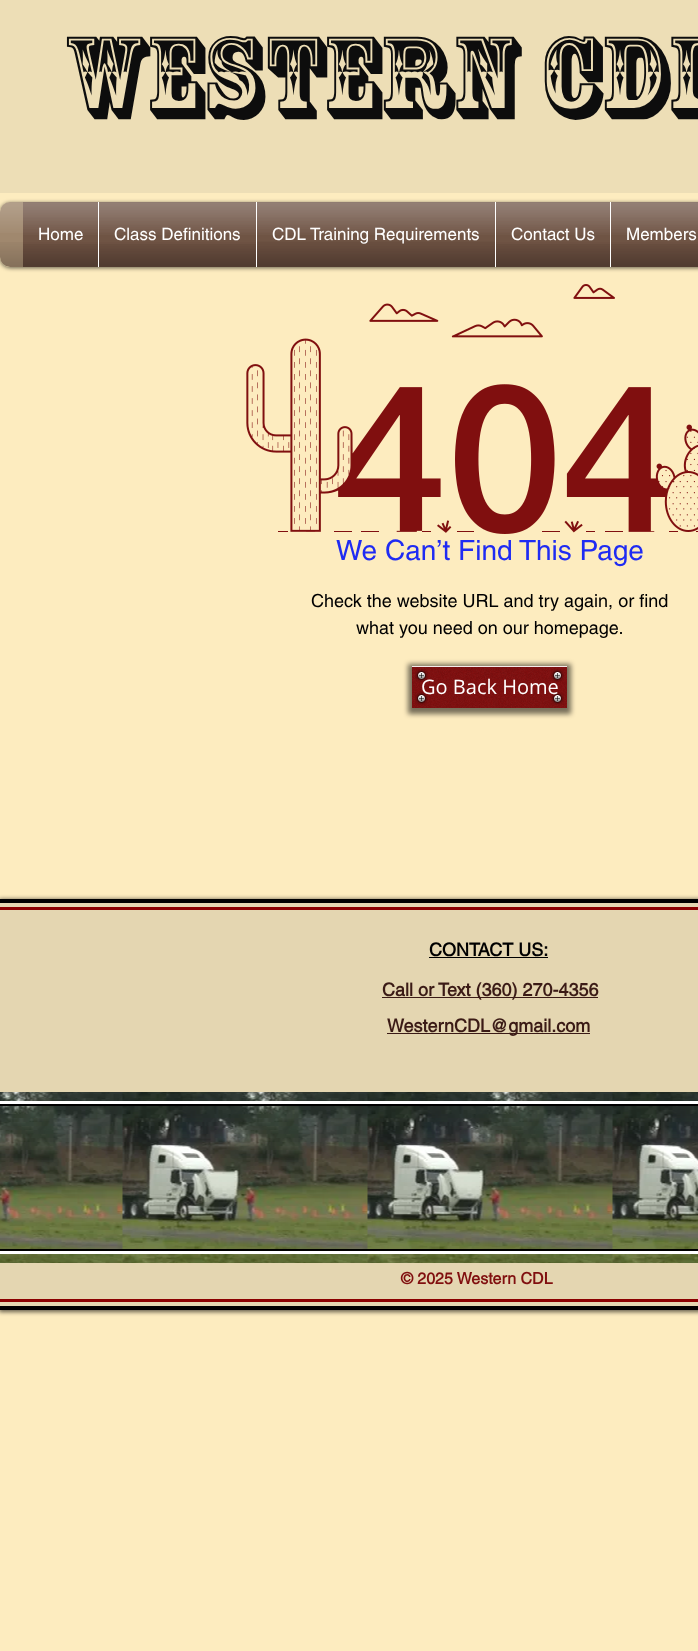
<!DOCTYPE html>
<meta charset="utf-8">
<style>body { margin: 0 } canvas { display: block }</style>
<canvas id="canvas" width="698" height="1651"></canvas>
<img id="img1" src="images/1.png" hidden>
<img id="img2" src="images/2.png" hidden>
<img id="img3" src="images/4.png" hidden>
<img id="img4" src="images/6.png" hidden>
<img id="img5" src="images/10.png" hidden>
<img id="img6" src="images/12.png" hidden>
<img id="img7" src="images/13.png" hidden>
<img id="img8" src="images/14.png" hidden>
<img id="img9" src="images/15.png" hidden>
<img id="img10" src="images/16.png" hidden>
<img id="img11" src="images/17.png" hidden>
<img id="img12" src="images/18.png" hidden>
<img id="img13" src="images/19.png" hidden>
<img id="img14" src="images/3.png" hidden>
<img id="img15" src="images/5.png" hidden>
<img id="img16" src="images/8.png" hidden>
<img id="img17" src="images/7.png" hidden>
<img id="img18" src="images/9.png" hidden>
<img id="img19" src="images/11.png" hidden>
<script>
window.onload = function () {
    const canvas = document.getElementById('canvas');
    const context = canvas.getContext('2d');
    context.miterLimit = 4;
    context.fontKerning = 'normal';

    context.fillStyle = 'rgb(253, 236, 191)';
    context.fillRect(0, 0, 698, 1651);
    context.fillStyle = 'rgb(237, 222, 182)';
    context.fillRect(0, 0, 698, 193);
    context.save();
    context.beginPath();
    context.moveTo(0, 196);
    context.lineTo(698, 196);
    context.lineTo(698, 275);
    context.lineTo(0, 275);
    context.closePath();
    context.moveTo(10, 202);
    context.lineTo(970, 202);
    context.bezierCurveTo(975.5, 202, 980, 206.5, 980, 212);
    context.lineTo(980, 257);
    context.bezierCurveTo(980, 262.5, 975.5, 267, 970, 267);
    context.lineTo(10, 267);
    context.bezierCurveTo(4.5, 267, 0, 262.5, 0, 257);
    context.lineTo(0, 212);
    context.bezierCurveTo(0, 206.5, 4.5, 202, 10, 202);
    context.closePath();
    context.clip('evenodd');
    context.fillStyle = 'rgba(0, 0, 0, 0.6)';
    context.filter = 'blur(2px)';
    context.beginPath();
    context.roundRect(0, 203, 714, 65, 10);
    context.fill();
    context.filter = 'none';
    context.restore();
    context.fillStyle = 'rgba(59, 27, 22, 0.48)';
    context.beginPath();
    context.roundRect(0, 202, 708, 65, 10);
    context.fill();
    context.drawImage(document.getElementById('img1'), 0, 202, 698, 31);
    context.drawImage(document.getElementById('img2'), 0, 242, 698, 25);
    context.fillRect(23, 202, 75, 65);
    context.drawImage(document.getElementById('img3'), 23, 244, 75, 23);
    context.fillRect(99, 202, 157, 65);
    context.fillStyle = 'rgb(255, 255, 255)';
    context.fillRect(98, 202, 1, 65);
    context.drawImage(document.getElementById('img4'), 99, 244, 157, 23);
    context.fillStyle = 'rgba(59, 27, 22, 0.48)';
    context.fillRect(257, 202, 238, 65);
    context.fillStyle = 'rgb(255, 255, 255)';
    context.fillRect(256, 202, 1, 65);
    context.fillStyle = 'rgba(59, 27, 22, 0.48)';
    context.fillRect(496, 202, 114, 65);
    context.fillStyle = 'rgb(255, 255, 255)';
    context.fillRect(495, 202, 1, 65);
    context.drawImage(document.getElementById('img5'), 496, 244, 114, 23);
    context.fillStyle = 'rgba(59, 27, 22, 0.48)';
    context.fillRect(611, 202, 87, 65);
    context.fillStyle = 'rgb(255, 255, 255)';
    context.fillRect(610, 202, 1, 65);
    context.drawImage(document.getElementById('img6'), 611, 244, 87, 23);
    context.drawImage(document.getElementById('img7'), 246, 284, 452, 250);
    context.fillStyle = 'rgba(0, 0, 0, 0.53)';
    context.filter = 'blur(2.5px)';
    context.beginPath();
    context.rect(408, 664, 163, 50);
    context.fill();
    context.filter = 'none';
    context.fillStyle = 'rgb(128, 15, 15)';
    context.fillRect(412, 666, 155, 42);
    context.drawImage(document.getElementById('img8'), 412, 666, 155, 42);
    context.fillStyle = 'rgba(255, 255, 255, 0.92)';
    context.fillRect(412, 666, 155, 1);
    context.drawImage(document.getElementById('img9'), 415, 669, 13, 13);
    context.drawImage(document.getElementById('img10'), 551, 669, 13, 13);
    context.drawImage(document.getElementById('img11'), 415, 692, 13, 13);
    context.drawImage(document.getElementById('img12'), 551, 692, 13, 13);
    context.fillStyle = 'rgba(0, 0, 0, 0.6)';
    context.filter = 'blur(2px)';
    context.beginPath();
    context.rect(-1, 899, 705, 413);
    context.fill();
    context.filter = 'none';
    context.fillStyle = 'rgb(228, 214, 177)';
    context.fillRect(0, 903, 698, 403);
    context.fillStyle = 'rgb(0, 0, 0)';
    context.fillRect(0, 899, 698, 4);
    context.fillRect(0, 1306, 698, 4);
    context.fillStyle = 'rgb(139, 0, 0)';
    context.fillRect(0, 907, 698, 3);
    context.fillRect(0, 1299, 698, 3);
    context.fillStyle = 'rgb(0, 0, 0)';
    context.fillRect(429, 957, 119, 1);
    context.fillStyle = 'rgb(59, 27, 22)';
    context.fillRect(382, 997, 216, 1);
    context.fillRect(387, 1033, 203, 1);
    context.drawImage(document.getElementById('img13'), 0, 1092, 698, 171);
    context.fillStyle = 'rgb(255, 255, 255)';
    context.fillRect(0, 1101, 698, 3);
    context.fillRect(0, 1251, 698, 3);
    context.fillStyle = 'rgb(0, 0, 0)';
    context.fillRect(0, 1104, 698, 2);
    context.fillRect(0, 1249, 698, 2);
    context.font = '110px "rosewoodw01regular"';
    context.fillStyle = 'rgb(13, 13, 13)';
    context.fillText('Western CDL', 63, 108);
    context.font = '17px helvetica';
    context.fillStyle = 'rgb(255, 255, 255)';
    context.fillText('Home', 38, 240);
    context.drawImage(document.getElementById('img14'), 23, 202, 75, 33);
    context.fillText('Class Definitions', 114, 240);
    context.drawImage(document.getElementById('img15'), 99, 202, 157, 33);
    context.fillText('CDL Training Requirements', 272, 240);
    context.drawImage(document.getElementById('img16'), 257, 241, 238, 26);
    context.drawImage(document.getElementById('img17'), 257, 202, 238, 33);
    context.fillText('Contact Us', 511, 240);
    context.drawImage(document.getElementById('img18'), 496, 202, 114, 33);
    context.fillText('Members', 626, 240);
    context.drawImage(document.getElementById('img19'), 611, 202, 87, 33);
    context.font = '28px helvetica';
    context.fillStyle = 'rgb(31, 43, 243)';
    context.fillText('We Can’t Find This Page', 336, 560);
    context.font = '18px helvetica';
    context.fillStyle = 'rgb(0, 0, 0)';
    context.fillText('Check the website URL and try again, or find', 311, 607);
    context.fillText('what you need on our homepage.', 356, 634);
    context.font = '20px Open Sans';
    context.fillStyle = 'rgb(255, 255, 255)';
    context.fillText('Go Back Home', 421, 694);
    context.font = 'bold 18px helvetica';
    context.fillStyle = 'rgb(0, 0, 0)';
    context.fillText('CONTACT US:', 429, 956);
    context.fillStyle = 'rgb(59, 27, 22)';
    context.fillText('Call or Text (360) 270-4356', 382, 996);
    context.fillText('WesternCDL@gmail.com', 387, 1032);
    context.font = 'bold 16px helvetica';
    context.fillStyle = 'rgb(128, 15, 15)';
    context.fillText('© 2025 Western CDL', 401, 1284);
};
</script>
